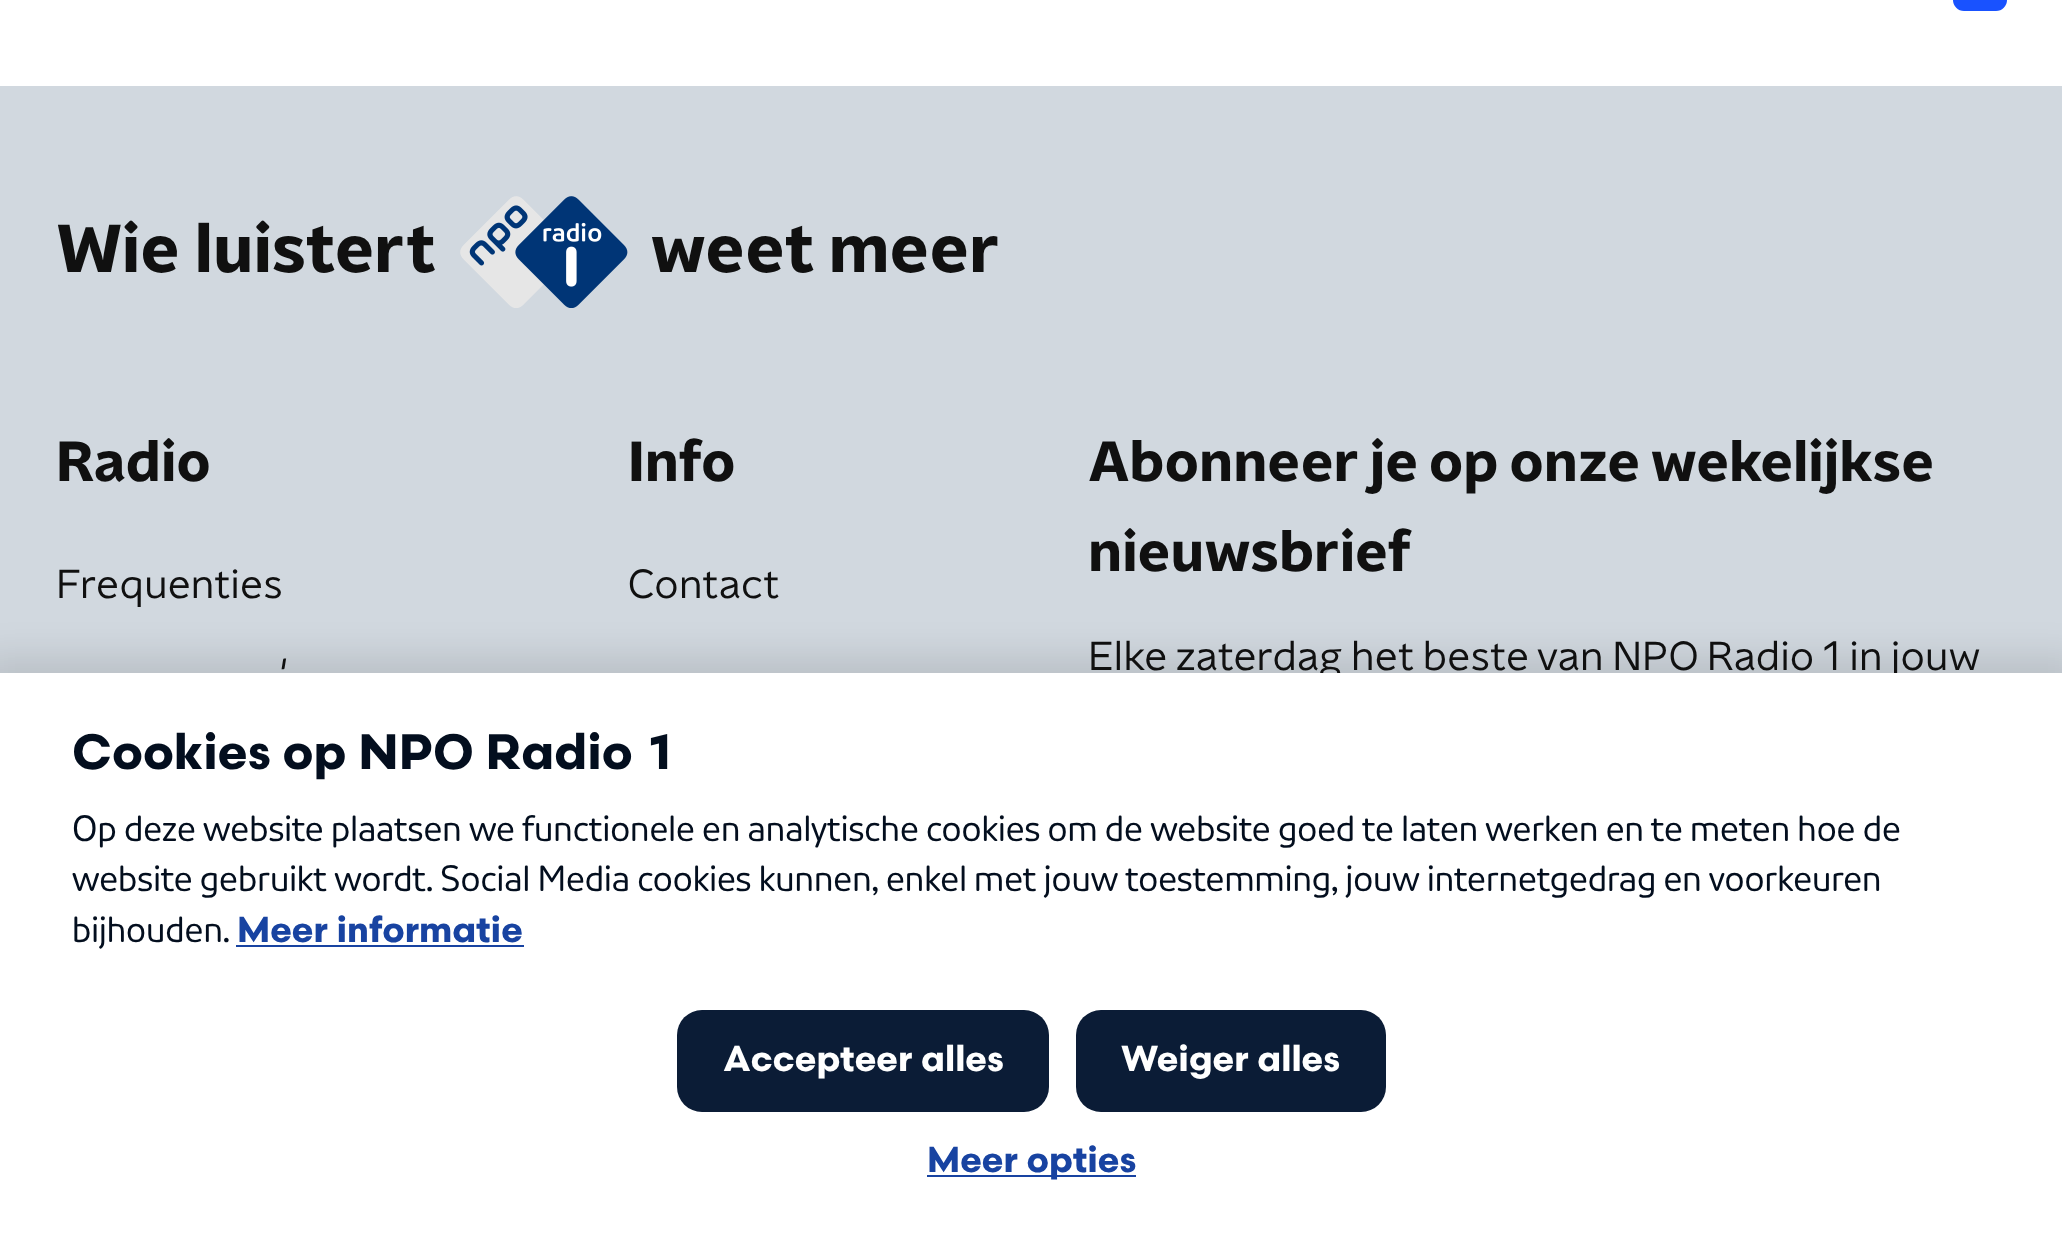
<!DOCTYPE html>
<meta charset="utf-8">
<style>body { margin: 0 } canvas { display: block }</style>
<canvas id="canvas" width="2062" height="1241"></canvas>
<img id="img1" src="images/1.png" hidden>
<script>
window.onload = function () {
    const canvas = document.getElementById('canvas');
    const context = canvas.getContext('2d');
    context.miterLimit = 4;
    context.fontKerning = 'normal';

    context.fillStyle = 'rgb(209, 216, 223)';
    context.fillRect(0, 0, 2062, 1241);
    context.fillStyle = 'rgb(255, 255, 255)';
    context.fillRect(0, 0, 2062, 86);
    context.fillStyle = 'rgb(25, 82, 255)';
    context.beginPath();
    context.roundRect(1953, -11, 54, 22, 11);
    context.fill();
    context.drawImage(document.getElementById('img1'), 460, 196, 168, 112);
    context.fillStyle = 'rgba(0, 0, 0, 0.1)';
    context.filter = 'blur(17px)';
    context.beginPath();
    context.rect(-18, 655, 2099, 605);
    context.fill();
    context.filter = 'none';
    context.font = 'bold 67.5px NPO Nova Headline';
    context.fillStyle = 'rgb(16, 16, 16)';
    context.fillText('Wie luistert', 56, 272);
    context.fillText('weet meer', 650, 272);
    context.font = 'bold 56.25px NPO Nova Headline';
    context.fillText('Radio', 56, 481);
    context.font = '40.5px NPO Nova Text';
    context.fillText('Frequenties', 56, 598);
    context.fillText('\'', 280, 688);
    context.font = 'bold 56.25px NPO Nova Headline';
    context.fillText('Info', 628, 481);
    context.font = '40.5px NPO Nova Text';
    context.fillText('Contact', 628, 598);
    context.wordSpacing = '-0.5px';
    context.font = 'bold 56.25px NPO Nova Headline';
    context.fillText('Abonneer je op onze wekelijkse', 1088, 481);
    context.wordSpacing = '0px';
    context.fillText('nieuwsbrief', 1088, 571);
    context.wordSpacing = '-0.1px';
    context.font = '40.5px NPO Nova Text';
    context.fillText('Elke zaterdag het beste van NPO Radio 1 in jouw', 1088, 670);
    context.fillStyle = 'rgb(255, 255, 255)';
    context.fillRect(0, 673, 2062, 568);
    context.wordSpacing = '0px';
    context.font = 'bold 49.5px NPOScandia';
    context.fillStyle = 'rgb(3, 14, 30)';
    context.fillText('Cookies op NPO Radio 1', 72, 769);
    context.font = '36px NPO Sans';
    context.fillText('Op deze website plaatsen we functionele en analytische cookies om de website goed te laten werken en te meten hoe de', 72, 841);
    context.fillText('website gebruikt wordt. Social Media cookies kunnen, enkel met jouw toestemming, jouw internetgedrag en voorkeuren', 72, 891);
    context.fillText('bijhouden.', 72, 942);
    context.font = 'bold 36px NPOScandia';
    context.fillStyle = 'rgb(24, 67, 161)';
    context.fillText('Meer informatie', 237, 942);
    context.fillRect(236, 945, 288, 2);
    context.fillStyle = 'rgb(11, 28, 54)';
    context.beginPath();
    context.roundRect(677, 1010, 372, 102, 25);
    context.fill();
    context.fillStyle = 'rgb(255, 255, 255)';
    context.fillText('Accepteer alles', 723, 1071);
    context.fillStyle = 'rgb(11, 28, 54)';
    context.beginPath();
    context.roundRect(1076, 1010, 310, 102, 25);
    context.fill();
    context.fillStyle = 'rgb(255, 255, 255)';
    context.fillText('Weiger alles', 1121, 1071);
    context.fillStyle = 'rgb(24, 67, 161)';
    context.fillRect(927, 1175, 209, 2);
    context.fillText('Meer opties', 927, 1172);
};
</script>
